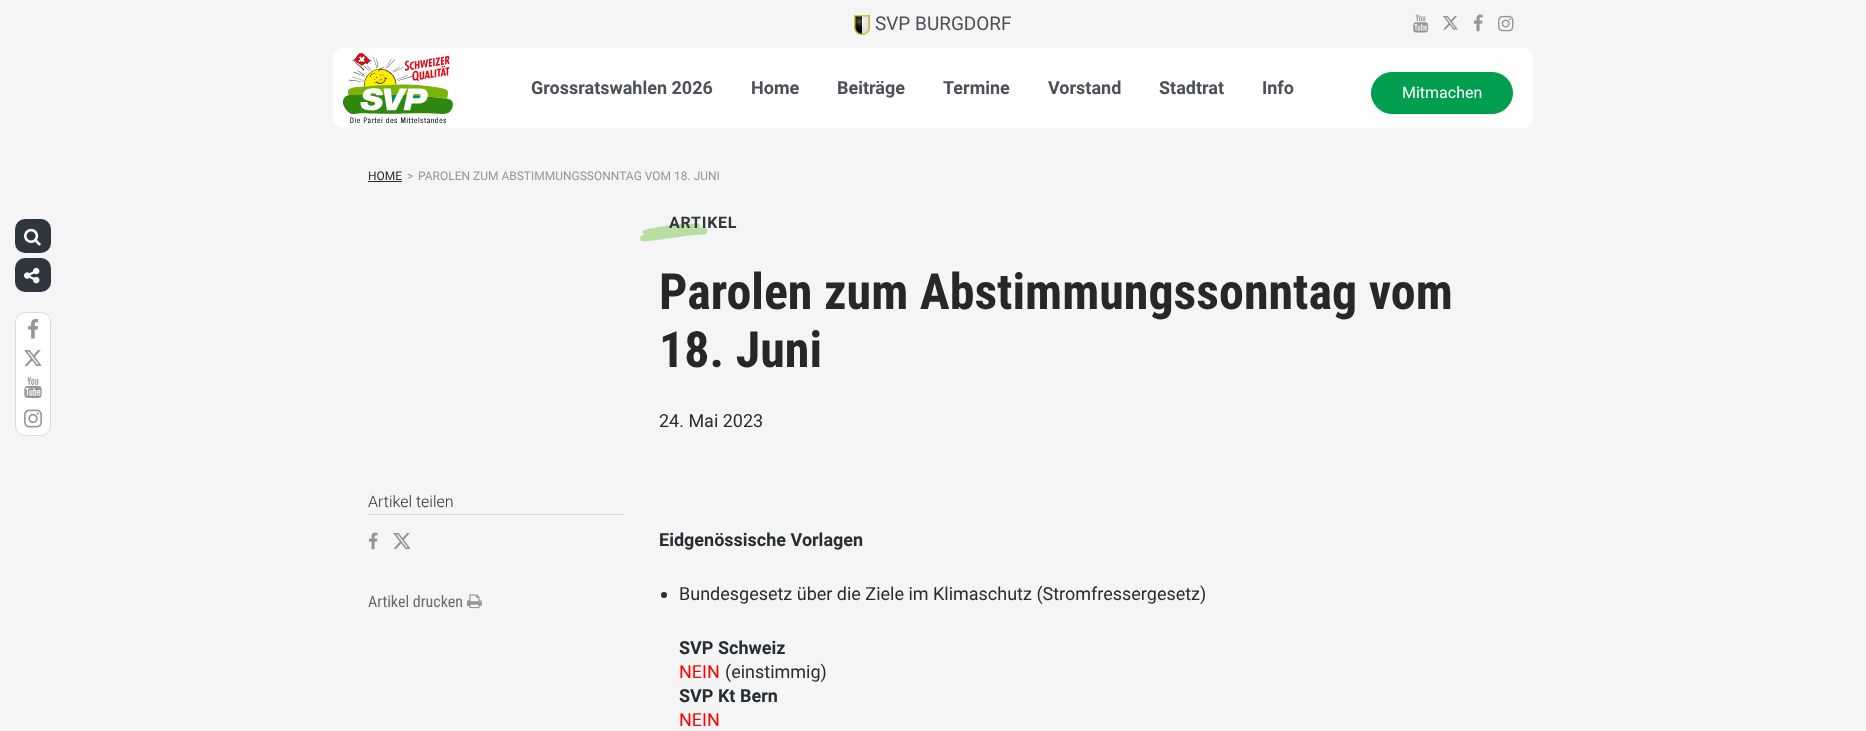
<!DOCTYPE html>
<meta charset="utf-8">
<style>body { margin: 0 } canvas { display: block }</style>
<canvas id="canvas" width="1866" height="731"></canvas>
<img id="img1" src="images/1.png" hidden>
<img id="img2" src="images/2.png" hidden>
<img id="img3" src="images/3.png" hidden>
<img id="img4" src="images/4.png" hidden>
<img id="img5" src="images/5.png" hidden>
<img id="img6" src="images/6.png" hidden>
<img id="img7" src="images/7.png" hidden>
<img id="img8" src="images/8.png" hidden>
<img id="img9" src="images/9.png" hidden>
<img id="img10" src="images/10.png" hidden>
<img id="img11" src="images/11.png" hidden>
<img id="img12" src="images/12.png" hidden>
<img id="img13" src="images/13.png" hidden>
<img id="img14" src="images/14.png" hidden>
<img id="img15" src="images/15.png" hidden>
<script>
window.onload = function () {
    const canvas = document.getElementById('canvas');
    const context = canvas.getContext('2d');
    context.miterLimit = 4;
    context.fontKerning = 'normal';

    context.fillStyle = 'rgb(245, 245, 245)';
    context.fillRect(0, 0, 1866, 731);
    context.drawImage(document.getElementById('img1'), 854, 15, 16, 20);
    context.drawImage(document.getElementById('img2'), 1413, 14, 16, 19);
    context.drawImage(document.getElementById('img3'), 1443, 16, 15, 14);
    context.drawImage(document.getElementById('img4'), 1473, 14, 10, 18);
    context.drawImage(document.getElementById('img5'), 1498, 15, 16, 17);
    context.fillStyle = 'rgb(255, 255, 255)';
    context.beginPath();
    context.roundRect(333, 48, 1200, 80, 10);
    context.fill();
    context.drawImage(document.getElementById('img6'), 343, 53, 110, 70);
    context.fillStyle = 'rgb(0, 159, 79)';
    context.beginPath();
    context.roundRect(1371.5, 72.5, 141, 41, 20.5);
    context.fill();
    context.strokeStyle = 'rgb(0, 159, 79)';
    context.stroke();
    context.fillStyle = 'rgb(48, 54, 61)';
    context.beginPath();
    context.roundRect(15, 219, 36, 34, 10);
    context.fill();
    context.drawImage(document.getElementById('img7'), 24, 228, 17, 18);
    context.beginPath();
    context.roundRect(15, 258, 36, 34, 10);
    context.fill();
    context.drawImage(document.getElementById('img8'), 24, 267, 16, 17);
    context.fillStyle = 'rgb(255, 255, 255)';
    context.beginPath();
    context.roundRect(15.5, 312.5, 35, 123, 9.5);
    context.fill();
    context.strokeStyle = 'rgb(217, 218, 219)';
    context.stroke();
    context.drawImage(document.getElementById('img9'), 28, 319, 11, 20);
    context.drawImage(document.getElementById('img10'), 24, 350, 18, 16);
    context.drawImage(document.getElementById('img11'), 24, 377, 18, 21);
    context.drawImage(document.getElementById('img12'), 24, 409, 18, 19);
    context.fillStyle = 'rgb(38, 45, 51)';
    context.fillRect(368, 181, 34, 1);
    context.fillStyle = 'rgb(217, 218, 219)';
    context.fillRect(368, 514, 256, 1);
    context.drawImage(document.getElementById('img4'), 368, 532, 10, 18);
    context.drawImage(document.getElementById('img13'), 393, 533, 17, 16);
    context.drawImage(document.getElementById('img14'), 467, 594, 15, 15);
    context.drawImage(document.getElementById('img15'), 640, 223, 68, 19);
    context.fillStyle = 'rgb(38, 45, 51)';
    context.beginPath();
    context.arc(664, 595, 3, 0, 2 * Math.PI);
    context.fill();
    context.font = '19px Roboto';
    context.fillStyle = 'rgb(75, 81, 87)';
    context.fillText('SVP BURGDORF', 875, 30);
    context.font = 'bold 18px Roboto';
    context.fillText('Grossratswahlen 2026', 531, 94);
    context.fillText('Home', 751, 94);
    context.fillText('Beiträge', 837, 94);
    context.fillText('Termine', 943, 94);
    context.fillText('Vorstand', 1048, 94);
    context.fillText('Stadtrat', 1159, 94);
    context.fillText('Info', 1262, 94);
    context.font = '16px Roboto';
    context.fillStyle = 'rgb(255, 255, 255)';
    context.fillText('Mitmachen', 1402, 98);
    context.font = '12px Roboto';
    context.fillStyle = 'rgb(38, 45, 51)';
    context.fillText('HOME', 368, 180);
    context.fillStyle = 'rgb(147, 150, 153)';
    context.fillText('>', 407, 180);
    context.fillText('PAROLEN ZUM ABSTIMMUNGSSONNTAG VOM 18. JUNI', 418, 180);
    context.font = '300 16px Roboto';
    context.fillStyle = 'rgb(38, 45, 51)';
    context.fillText('Artikel teilen', 368, 507);
    context.font = '16px Roboto Condensed';
    context.fillStyle = 'rgb(101, 107, 112)';
    context.fillText('Artikel drucken', 368, 607);
    context.letterSpacing = '0.75px';
    context.font = 'bold 16px Roboto';
    context.fillStyle = 'rgb(48, 54, 61)';
    context.fillText('ARTIKEL', 669, 228);
    context.letterSpacing = '0px';
    context.font = 'bold 50px Roboto Condensed';
    context.fillStyle = 'rgb(39, 39, 39)';
    context.fillText('Parolen zum Abstimmungssonntag vom', 659, 309);
    context.fillText('18. Juni', 659, 367);
    context.font = '18px Roboto';
    context.fillStyle = 'rgb(38, 45, 51)';
    context.fillText('24. Mai 2023', 659, 427);
    context.font = 'bold 18px Roboto';
    context.fillText('Eidgenössische Vorlagen', 659, 546);
    context.font = '18px Roboto';
    context.fillText('Bundesgesetz über die Ziele im Klimaschutz (Stromfressergesetz)', 679, 600);
    context.font = 'bold 18px Roboto';
    context.fillText('SVP Schweiz', 679, 654);
    context.font = '18px Roboto';
    context.fillStyle = 'rgb(255, 0, 0)';
    context.fillText('NEIN', 679, 678);
    context.fillStyle = 'rgb(38, 45, 51)';
    context.fillText('(einstimmig)', 725, 678);
    context.font = 'bold 18px Roboto';
    context.fillText('SVP Kt Bern', 679, 702);
    context.font = '18px Roboto';
    context.fillStyle = 'rgb(255, 0, 0)';
    context.fillText('NEIN', 679, 726);
};
</script>
